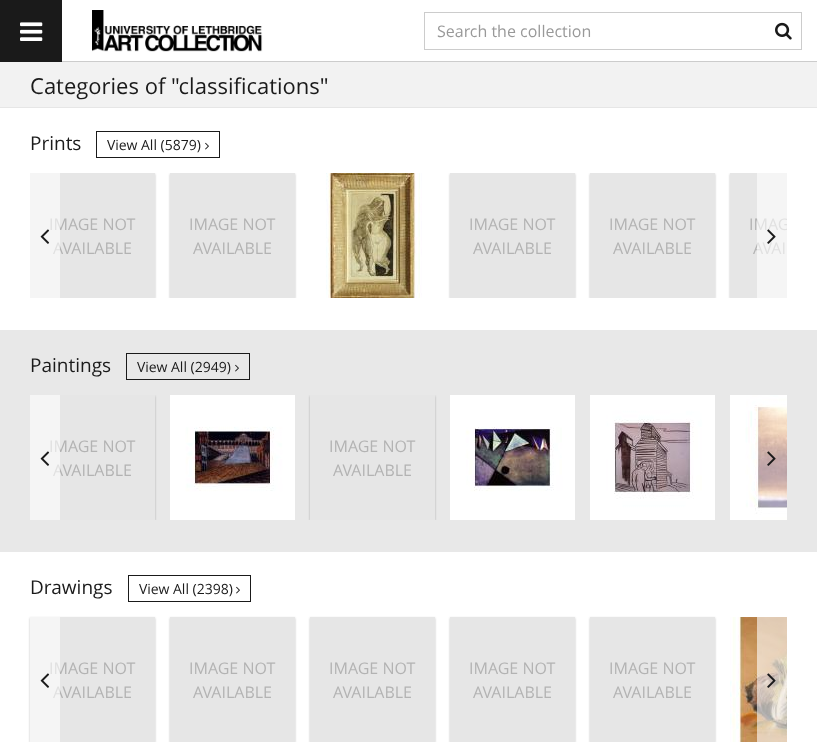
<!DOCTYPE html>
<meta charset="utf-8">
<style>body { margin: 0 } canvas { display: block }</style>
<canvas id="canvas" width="817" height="742"></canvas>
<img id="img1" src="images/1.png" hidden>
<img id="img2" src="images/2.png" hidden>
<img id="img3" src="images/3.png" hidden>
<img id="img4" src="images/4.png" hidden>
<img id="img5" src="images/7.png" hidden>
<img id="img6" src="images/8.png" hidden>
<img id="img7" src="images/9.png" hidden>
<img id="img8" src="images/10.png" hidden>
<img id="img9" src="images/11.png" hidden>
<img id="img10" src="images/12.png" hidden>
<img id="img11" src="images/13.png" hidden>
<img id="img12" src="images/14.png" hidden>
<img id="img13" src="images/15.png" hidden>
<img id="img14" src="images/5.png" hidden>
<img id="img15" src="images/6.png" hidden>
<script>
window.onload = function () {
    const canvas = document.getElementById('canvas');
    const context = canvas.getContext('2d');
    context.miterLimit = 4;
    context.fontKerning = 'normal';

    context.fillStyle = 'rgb(255, 255, 255)';
    context.fillRect(0, 0, 817, 742);
    context.fillStyle = 'rgb(204, 204, 204)';
    context.fillRect(62, 61, 755, 1);
    context.fillStyle = 'rgb(26, 26, 26)';
    context.fillRect(0, 0, 62, 62);
    context.drawImage(document.getElementById('img1'), 20, 22, 23, 19);
    context.drawImage(document.getElementById('img2'), 92, 10, 171, 42);
    context.strokeStyle = 'rgb(204, 204, 204)';
    context.strokeRect(424.5, 12.5, 377, 37);
    context.drawImage(document.getElementById('img3'), 775, 22, 17, 18);
    context.fillStyle = 'rgb(242, 242, 242)';
    context.fillRect(0, 62, 817, 45);
    context.fillStyle = 'rgb(230, 230, 230)';
    context.fillRect(0, 107, 817, 1);
    context.strokeStyle = 'rgb(26, 26, 26)';
    context.strokeRect(96.5, 131.5, 123, 26);
    context.drawImage(document.getElementById('img4'), 205, 142, 4, 8);
    context.save();
    context.beginPath();
    context.rect(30, 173, 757, 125);
    context.clip();
    context.fillStyle = 'rgba(0, 0, 0, 0.25)';
    context.filter = 'blur(1px)';
    context.beginPath();
    context.rect(30, 174, 125, 125);
    context.fill();
    context.filter = 'none';
    context.restore();
    context.fillRect(30, 173, 125, 125);
    context.save();
    context.beginPath();
    context.rect(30, 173, 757, 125);
    context.clip();
    context.fillStyle = 'rgba(0, 0, 0, 0.25)';
    context.filter = 'blur(1px)';
    context.beginPath();
    context.rect(170, 174, 125, 125);
    context.fill();
    context.filter = 'none';
    context.restore();
    context.fillRect(170, 173, 125, 125);
    context.drawImage(document.getElementById('img5'), 326, 173, 96, 125);
    context.save();
    context.beginPath();
    context.rect(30, 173, 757, 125);
    context.clip();
    context.fillStyle = 'rgba(0, 0, 0, 0.25)';
    context.filter = 'blur(1px)';
    context.beginPath();
    context.rect(450, 174, 125, 125);
    context.fill();
    context.filter = 'none';
    context.restore();
    context.fillRect(450, 173, 125, 125);
    context.save();
    context.beginPath();
    context.rect(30, 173, 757, 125);
    context.clip();
    context.fillStyle = 'rgba(0, 0, 0, 0.25)';
    context.filter = 'blur(1px)';
    context.beginPath();
    context.rect(590, 174, 125, 125);
    context.fill();
    context.filter = 'none';
    context.restore();
    context.fillRect(590, 173, 125, 125);
    context.save();
    context.beginPath();
    context.rect(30, 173, 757, 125);
    context.clip();
    context.fillStyle = 'rgba(0, 0, 0, 0.25)';
    context.filter = 'blur(1px)';
    context.beginPath();
    context.rect(730, 174, 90, 125);
    context.fill();
    context.filter = 'none';
    context.restore();
    context.fillRect(730, 173, 57, 125);
    context.fillStyle = 'rgb(232, 232, 232)';
    context.fillRect(0, 330, 817, 222);
    context.strokeRect(126.5, 353.5, 123, 26);
    context.drawImage(document.getElementById('img6'), 235, 364, 4, 8);
    context.save();
    context.beginPath();
    context.rect(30, 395, 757, 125);
    context.clip();
    context.fillStyle = 'rgba(0, 0, 0, 0.25)';
    context.filter = 'blur(1px)';
    context.beginPath();
    context.rect(30, 396, 125, 125);
    context.fill();
    context.filter = 'none';
    context.restore();
    context.fillStyle = 'rgb(230, 230, 230)';
    context.fillRect(30, 395, 125, 125);
    context.drawImage(document.getElementById('img7'), 170, 395, 125, 125);
    context.save();
    context.beginPath();
    context.rect(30, 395, 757, 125);
    context.clip();
    context.fillStyle = 'rgba(0, 0, 0, 0.25)';
    context.filter = 'blur(1px)';
    context.beginPath();
    context.rect(310, 396, 125, 125);
    context.fill();
    context.filter = 'none';
    context.restore();
    context.fillRect(310, 395, 125, 125);
    context.drawImage(document.getElementById('img8'), 450, 395, 125, 125);
    context.drawImage(document.getElementById('img9'), 590, 395, 125, 125);
    context.drawImage(document.getElementById('img10'), 730, 395, 57, 125);
    context.fillStyle = 'rgba(255, 255, 255, 0.6)';
    context.fillRect(757, 403, 30, 112);
    context.drawImage(document.getElementById('img11'), 767, 451, 9, 15);
    context.strokeRect(128.5, 575.5, 122, 26);
    context.drawImage(document.getElementById('img4'), 236, 586, 4, 8);
    context.fillStyle = 'rgba(0, 0, 0, 0.25)';
    context.filter = 'blur(1px)';
    context.beginPath();
    context.rect(30, 618, 125, 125);
    context.fill();
    context.filter = 'none';
    context.fillStyle = 'rgb(230, 230, 230)';
    context.fillRect(30, 617, 125, 125);
    context.fillStyle = 'rgba(0, 0, 0, 0.25)';
    context.filter = 'blur(1px)';
    context.beginPath();
    context.rect(170, 618, 125, 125);
    context.fill();
    context.filter = 'none';
    context.fillStyle = 'rgb(230, 230, 230)';
    context.fillRect(170, 617, 125, 125);
    context.fillStyle = 'rgba(0, 0, 0, 0.25)';
    context.filter = 'blur(1px)';
    context.beginPath();
    context.rect(310, 618, 125, 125);
    context.fill();
    context.filter = 'none';
    context.fillStyle = 'rgb(230, 230, 230)';
    context.fillRect(310, 617, 125, 125);
    context.fillStyle = 'rgba(0, 0, 0, 0.25)';
    context.filter = 'blur(1px)';
    context.beginPath();
    context.rect(450, 618, 125, 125);
    context.fill();
    context.filter = 'none';
    context.fillStyle = 'rgb(230, 230, 230)';
    context.fillRect(450, 617, 125, 125);
    context.fillStyle = 'rgba(0, 0, 0, 0.25)';
    context.filter = 'blur(1px)';
    context.beginPath();
    context.rect(590, 618, 125, 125);
    context.fill();
    context.filter = 'none';
    context.fillStyle = 'rgb(230, 230, 230)';
    context.fillRect(590, 617, 125, 125);
    context.drawImage(document.getElementById('img12'), 730, 617, 57, 125);
    context.fillStyle = 'rgba(255, 255, 255, 0.6)';
    context.fillRect(757, 617, 30, 125);
    context.drawImage(document.getElementById('img13'), 767, 673, 9, 15);
    context.font = '16px Open Sans';
    context.fillStyle = 'rgb(153, 153, 153)';
    context.fillText('Search the collection', 437, 37);
    context.font = '22px Open Sans';
    context.fillStyle = 'rgb(26, 26, 26)';
    context.fillText('Categories of "classifications"', 30, 94);
    context.font = '19px Open Sans';
    context.fillText('Prints', 30, 150);
    context.font = '14px Open Sans';
    context.fillText('View All (5879)', 107, 150);
    context.font = '16px Open Sans';
    context.fillStyle = 'rgb(179, 179, 179)';
    context.fillText('IMAGE NOT', 49, 230);
    context.fillText('AVAILABLE', 53, 254);
    context.fillStyle = 'rgba(255, 255, 255, 0.6)';
    context.fillRect(30, 173, 30, 125);
    context.drawImage(document.getElementById('img14'), 40, 229, 10, 15);
    context.fillStyle = 'rgb(179, 179, 179)';
    context.fillText('IMAGE NOT', 189, 230);
    context.fillText('AVAILABLE', 193, 254);
    context.fillText('IMAGE NOT', 469, 230);
    context.fillText('AVAILABLE', 473, 254);
    context.fillText('IMAGE NOT', 609, 230);
    context.fillText('AVAILABLE', 613, 254);
    context.save();
    context.beginPath();
    context.rect(30, 173, 757, 125);
    context.clip();
    context.fillText('IMAG', 749, 230);
    context.restore();
    context.fillText('AVAI', 753, 254);
    context.fillStyle = 'rgba(255, 255, 255, 0.6)';
    context.fillRect(757, 173, 30, 125);
    context.drawImage(document.getElementById('img15'), 767, 229, 9, 15);
    context.font = '19px Open Sans';
    context.fillStyle = 'rgb(26, 26, 26)';
    context.fillText('Paintings', 30, 372);
    context.font = '14px Open Sans';
    context.fillText('View All (2949)', 137, 372);
    context.font = '16px Open Sans';
    context.fillStyle = 'rgb(179, 179, 179)';
    context.fillText('IMAGE NOT', 49, 452);
    context.fillText('AVAILABLE', 53, 476);
    context.fillStyle = 'rgba(255, 255, 255, 0.6)';
    context.fillRect(30, 395, 30, 125);
    context.drawImage(document.getElementById('img14'), 40, 451, 10, 15);
    context.fillStyle = 'rgb(179, 179, 179)';
    context.fillText('IMAGE NOT', 329, 452);
    context.fillText('AVAILABLE', 333, 476);
    context.font = '19px Open Sans';
    context.fillStyle = 'rgb(26, 26, 26)';
    context.fillText('Drawings', 30, 594);
    context.font = '14px Open Sans';
    context.fillText('View All (2398)', 139, 594);
    context.font = '16px Open Sans';
    context.fillStyle = 'rgb(179, 179, 179)';
    context.fillText('IMAGE NOT', 49, 674);
    context.fillText('AVAILABLE', 53, 698);
    context.fillStyle = 'rgba(255, 255, 255, 0.6)';
    context.fillRect(30, 617, 30, 125);
    context.drawImage(document.getElementById('img14'), 40, 673, 10, 15);
    context.fillStyle = 'rgb(179, 179, 179)';
    context.fillText('IMAGE NOT', 189, 674);
    context.fillText('AVAILABLE', 193, 698);
    context.fillText('IMAGE NOT', 329, 674);
    context.fillText('AVAILABLE', 333, 698);
    context.fillText('IMAGE NOT', 469, 674);
    context.fillText('AVAILABLE', 473, 698);
    context.fillText('IMAGE NOT', 609, 674);
    context.fillText('AVAILABLE', 613, 698);
};
</script>
